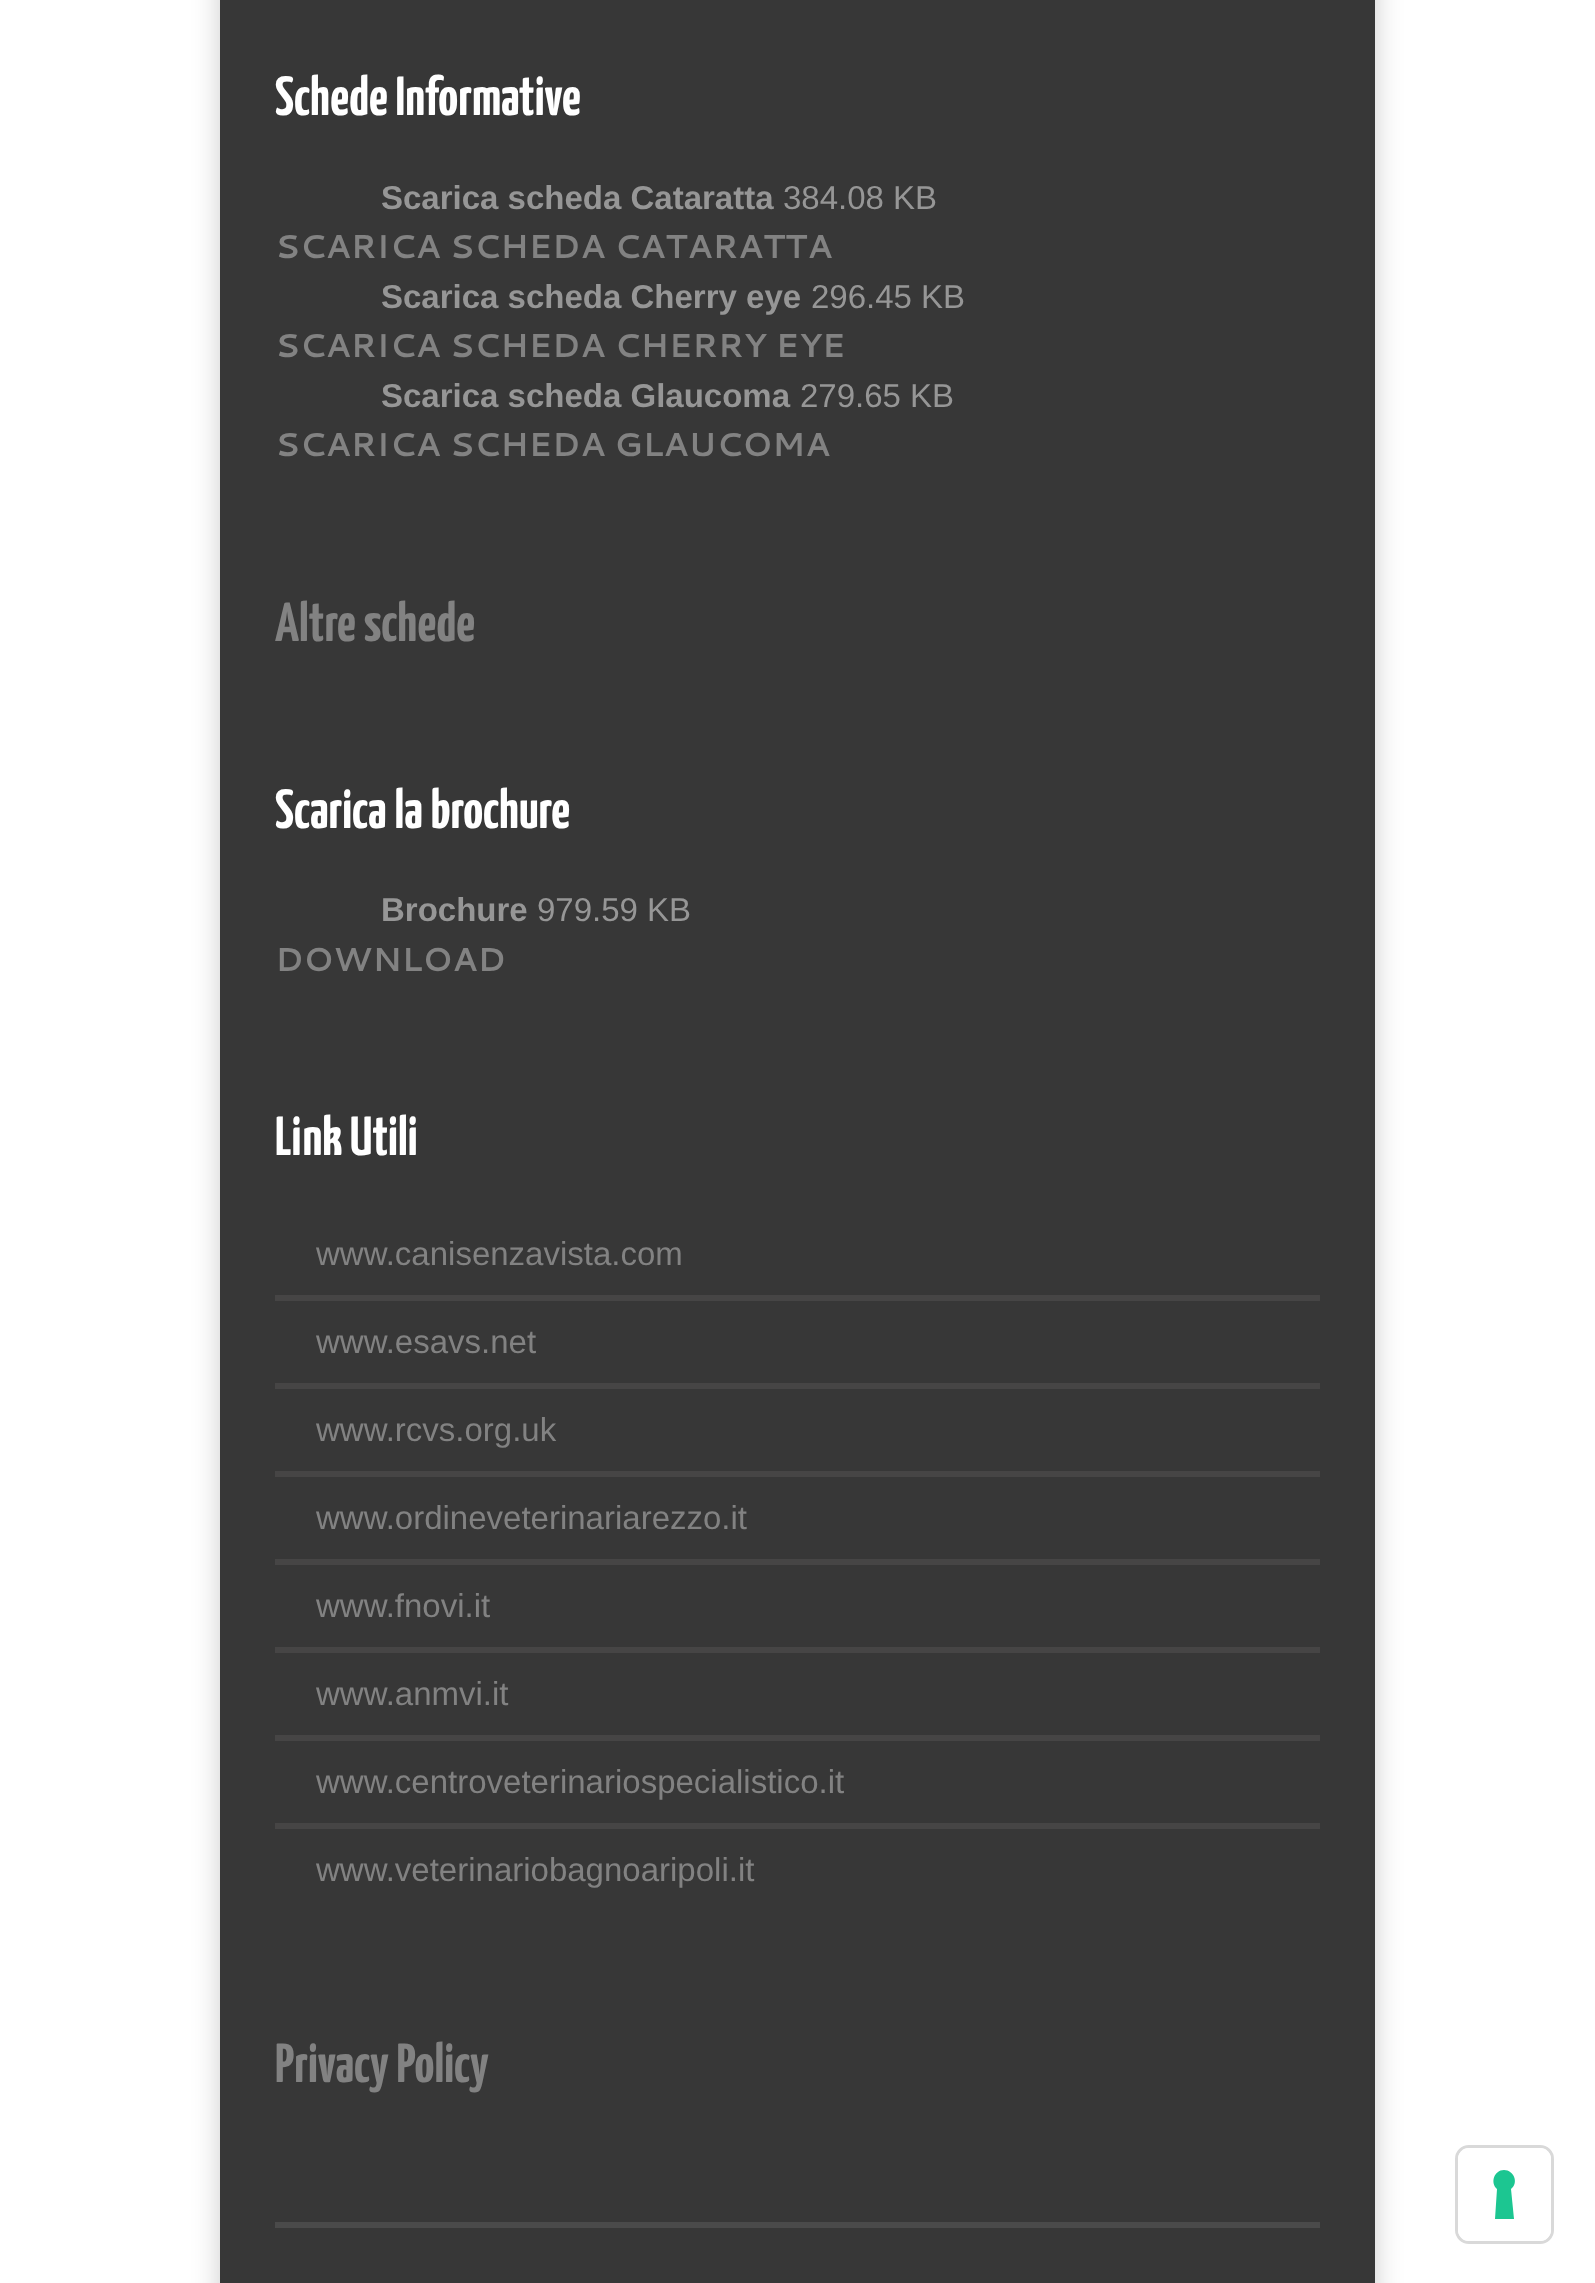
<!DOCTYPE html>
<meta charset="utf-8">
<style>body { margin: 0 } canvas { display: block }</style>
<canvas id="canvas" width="1595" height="2283"></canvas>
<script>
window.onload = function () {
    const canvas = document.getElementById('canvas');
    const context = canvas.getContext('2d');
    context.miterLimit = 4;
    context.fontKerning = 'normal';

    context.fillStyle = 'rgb(255, 255, 255)';
    context.fillRect(0, 0, 1595, 2283);
    context.fillStyle = 'rgba(0, 0, 0, 0.2)';
    context.filter = 'blur(14px)';
    context.beginPath();
    context.rect(220, -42, 1155, 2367);
    context.fill();
    context.filter = 'none';
    context.fillStyle = 'rgb(55, 55, 55)';
    context.fillRect(220, 0, 1155, 2283);
    context.fillStyle = 'rgb(70, 69, 69)';
    context.fillRect(275, 1295, 1045, 6);
    context.fillRect(275, 1383, 1045, 6);
    context.fillRect(275, 1471, 1045, 6);
    context.fillRect(275, 1559, 1045, 6);
    context.fillRect(275, 1647, 1045, 6);
    context.fillRect(275, 1735, 1045, 6);
    context.fillRect(275, 1823, 1045, 6);
    context.fillStyle = 'rgb(74, 74, 74)';
    context.fillRect(275, 2222, 1045, 6);
    context.beginPath();
    context.roundRect(1456.5, 2146.5, 96, 96, 12.5);
    context.strokeStyle = 'rgb(217, 217, 217)';
    context.lineWidth = 3;
    context.stroke();
    context.fillStyle = 'rgb(255, 255, 255)';
    context.beginPath();
    context.roundRect(1458, 2148, 93, 93, 11);
    context.fill();
    context.fillStyle = 'rgb(28, 198, 145)';
    context.beginPath();
    context.moveTo(1504, 2170);
    context.bezierCurveTo(1514, 2170, 1519, 2183, 1511, 2189);
    context.lineTo(1514, 2219);
    context.lineTo(1495, 2219);
    context.lineTo(1497, 2189);
    context.bezierCurveTo(1490, 2183, 1494, 2170, 1504, 2170);
    context.closePath();
    context.fill('evenodd');
    context.font = 'bold 55px Yanone Kaffeesatz';
    context.fillStyle = 'rgb(255, 255, 255)';
    context.fillText('Schede Informative', 275, 115);
    context.font = 'bold 33px Liberation Sans';
    context.fillStyle = 'rgb(150, 150, 150)';
    context.fillText('Scarica scheda Cataratta', 381, 209);
    context.font = '33px Liberation Sans';
    context.fillText('384.08 KB', 783, 209);
    context.font = 'bold 33px Cantarell';
    context.fillStyle = 'rgb(130, 130, 130)';
    context.fillText('SCARICA SCHEDA CATARATTA', 275, 258);
    context.font = 'bold 33px Liberation Sans';
    context.fillStyle = 'rgb(150, 150, 150)';
    context.fillText('Scarica scheda Cherry eye', 381, 308);
    context.font = '33px Liberation Sans';
    context.fillText('296.45 KB', 811, 308);
    context.font = 'bold 33px Cantarell';
    context.fillStyle = 'rgb(130, 130, 130)';
    context.fillText('SCARICA SCHEDA CHERRY EYE', 275, 357);
    context.font = 'bold 33px Liberation Sans';
    context.fillStyle = 'rgb(150, 150, 150)';
    context.fillText('Scarica scheda Glaucoma', 381, 407);
    context.font = '33px Liberation Sans';
    context.fillText('279.65 KB', 800, 407);
    context.font = 'bold 33px Cantarell';
    context.fillStyle = 'rgb(130, 130, 130)';
    context.fillText('SCARICA SCHEDA GLAUCOMA', 275, 456);
    context.font = 'bold 55px Yanone Kaffeesatz';
    context.fillText('Altre schede', 275, 641);
    context.fillStyle = 'rgb(255, 255, 255)';
    context.fillText('Scarica la brochure', 275, 828);
    context.font = 'bold 33px Liberation Sans';
    context.fillStyle = 'rgb(150, 150, 150)';
    context.fillText('Brochure', 381, 921);
    context.font = '33px Liberation Sans';
    context.fillText('979.59 KB', 537, 921);
    context.font = 'bold 33px Cantarell';
    context.fillStyle = 'rgb(130, 130, 130)';
    context.fillText('DOWNLOAD', 275, 971);
    context.font = 'bold 55px Yanone Kaffeesatz';
    context.fillStyle = 'rgb(255, 255, 255)';
    context.fillText('Link Utili', 275, 1155);
    context.font = '33px Liberation Sans';
    context.fillStyle = 'rgb(130, 130, 130)';
    context.fillText('www.canisenzavista.com', 316, 1265);
    context.fillText('www.esavs.net', 316, 1353);
    context.fillText('www.rcvs.org.uk', 316, 1441);
    context.fillText('www.ordineveterinariarezzo.it', 316, 1529);
    context.fillText('www.fnovi.it', 316, 1617);
    context.fillText('www.anmvi.it', 316, 1705);
    context.fillText('www.centroveterinariospecialistico.it', 316, 1793);
    context.fillText('www.veterinariobagnoaripoli.it', 316, 1881);
    context.font = 'bold 55px Yanone Kaffeesatz';
    context.fillText('Privacy Policy', 275, 2082);
};
</script>
